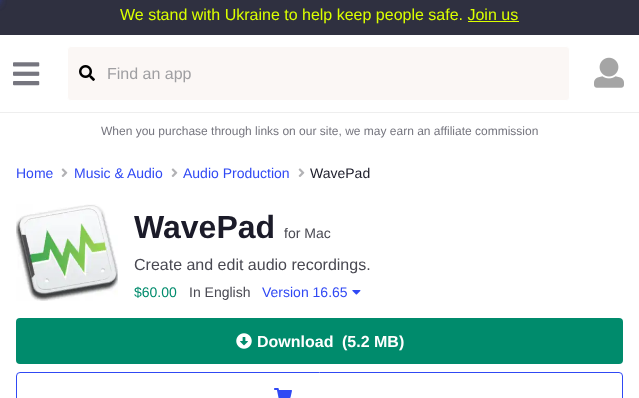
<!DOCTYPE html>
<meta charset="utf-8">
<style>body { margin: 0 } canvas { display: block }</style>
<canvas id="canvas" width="639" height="398"></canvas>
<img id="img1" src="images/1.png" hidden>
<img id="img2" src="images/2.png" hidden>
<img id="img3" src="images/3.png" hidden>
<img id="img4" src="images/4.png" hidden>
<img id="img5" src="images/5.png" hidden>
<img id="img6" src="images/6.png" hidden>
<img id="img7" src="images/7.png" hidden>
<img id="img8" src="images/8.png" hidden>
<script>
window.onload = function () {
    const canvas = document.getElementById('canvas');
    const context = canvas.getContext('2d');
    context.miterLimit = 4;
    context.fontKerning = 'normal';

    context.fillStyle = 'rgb(255, 255, 255)';
    context.fillRect(0, 0, 639, 398);
    context.fillStyle = 'rgb(47, 48, 64)';
    context.fillRect(0, 0, 639, 35);
    context.fillStyle = 'rgb(48, 73, 244)';
    context.filter = 'blur(5px)';
    context.beginPath();
    context.rect(-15, -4, 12, 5);
    context.fill();
    context.filter = 'none';
    context.filter = 'blur(5px)';
    context.beginPath();
    context.rect(-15, -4, 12, 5);
    context.fill();
    context.filter = 'none';
    context.fillStyle = 'rgb(219, 255, 0)';
    context.fillRect(468, 21, 51, 1);
    context.fillStyle = 'rgb(238, 238, 238)';
    context.fillRect(0, 112, 639, 1);
    context.drawImage(document.getElementById('img1'), 13, 62, 27, 24);
    context.fillStyle = 'rgb(251, 247, 245)';
    context.beginPath();
    context.roundRect(67.5, 46.5, 502, 54, 3.5);
    context.fill();
    context.strokeStyle = 'rgb(255, 255, 255)';
    context.stroke();
    context.drawImage(document.getElementById('img2'), 79, 65, 16, 16);
    context.drawImage(document.getElementById('img3'), 594, 57, 30, 31);
    context.drawImage(document.getElementById('img4'), 61, 168, 7, 9);
    context.drawImage(document.getElementById('img4'), 171, 168, 7, 9);
    context.drawImage(document.getElementById('img4'), 298, 168, 7, 9);
    context.drawImage(document.getElementById('img5'), 16, 204, 102, 97);
    context.drawImage(document.getElementById('img6'), 352, 290, 9, 5);
    context.fillStyle = 'rgb(0, 139, 108)';
    context.beginPath();
    context.roundRect(16, 318, 607, 46, 4);
    context.fill();
    context.drawImage(document.getElementById('img7'), 236, 333, 16, 16);
    context.beginPath();
    context.roundRect(16.5, 372.5, 606, 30, 3.5);
    context.strokeStyle = 'rgb(48, 73, 244)';
    context.stroke();
    context.drawImage(document.getElementById('img8'), 274, 388, 18, 10);
    context.font = '16px Liberation Sans';
    context.fillStyle = 'rgb(219, 255, 0)';
    context.fillText('We stand with Ukraine to help keep people safe. Join us', 120, 20);
    context.fillStyle = 'rgb(159, 159, 162)';
    context.fillText('Find an app', 107, 79);
    context.font = '12px Liberation Sans';
    context.fillStyle = 'rgb(118, 118, 127)';
    context.fillText('When you purchase through links on our site, we may earn an affiliate commission', 101, 135);
    context.font = '14px Liberation Sans';
    context.fillStyle = 'rgb(48, 73, 244)';
    context.fillText('Home', 16, 178);
    context.fillText('Music & Audio', 74, 178);
    context.fillText('Audio Production', 183, 178);
    context.fillStyle = 'rgb(27, 27, 41)';
    context.fillText('WavePad', 310, 178);
    context.font = 'bold 32px Liberation Sans';
    context.fillText('WavePad', 134, 238);
    context.font = '14px Liberation Sans';
    context.fillStyle = 'rgb(73, 73, 82)';
    context.fillText('for Mac', 284, 238);
    context.font = '16px Liberation Sans';
    context.fillText('Create and edit audio recordings.', 134, 270);
    context.font = '14px Liberation Sans';
    context.fillStyle = 'rgb(0, 139, 108)';
    context.fillText('$60.00', 134, 297);
    context.fillStyle = 'rgb(73, 73, 82)';
    context.fillText('In English', 189, 297);
    context.fillStyle = 'rgb(48, 73, 244)';
    context.fillText('Version 16.65', 262, 297);
    context.font = 'bold 16px Liberation Sans';
    context.fillStyle = 'rgb(255, 255, 255)';
    context.fillText('Download', 257, 347);
    context.fillText('(5.2 MB)', 342, 347);
};
</script>
